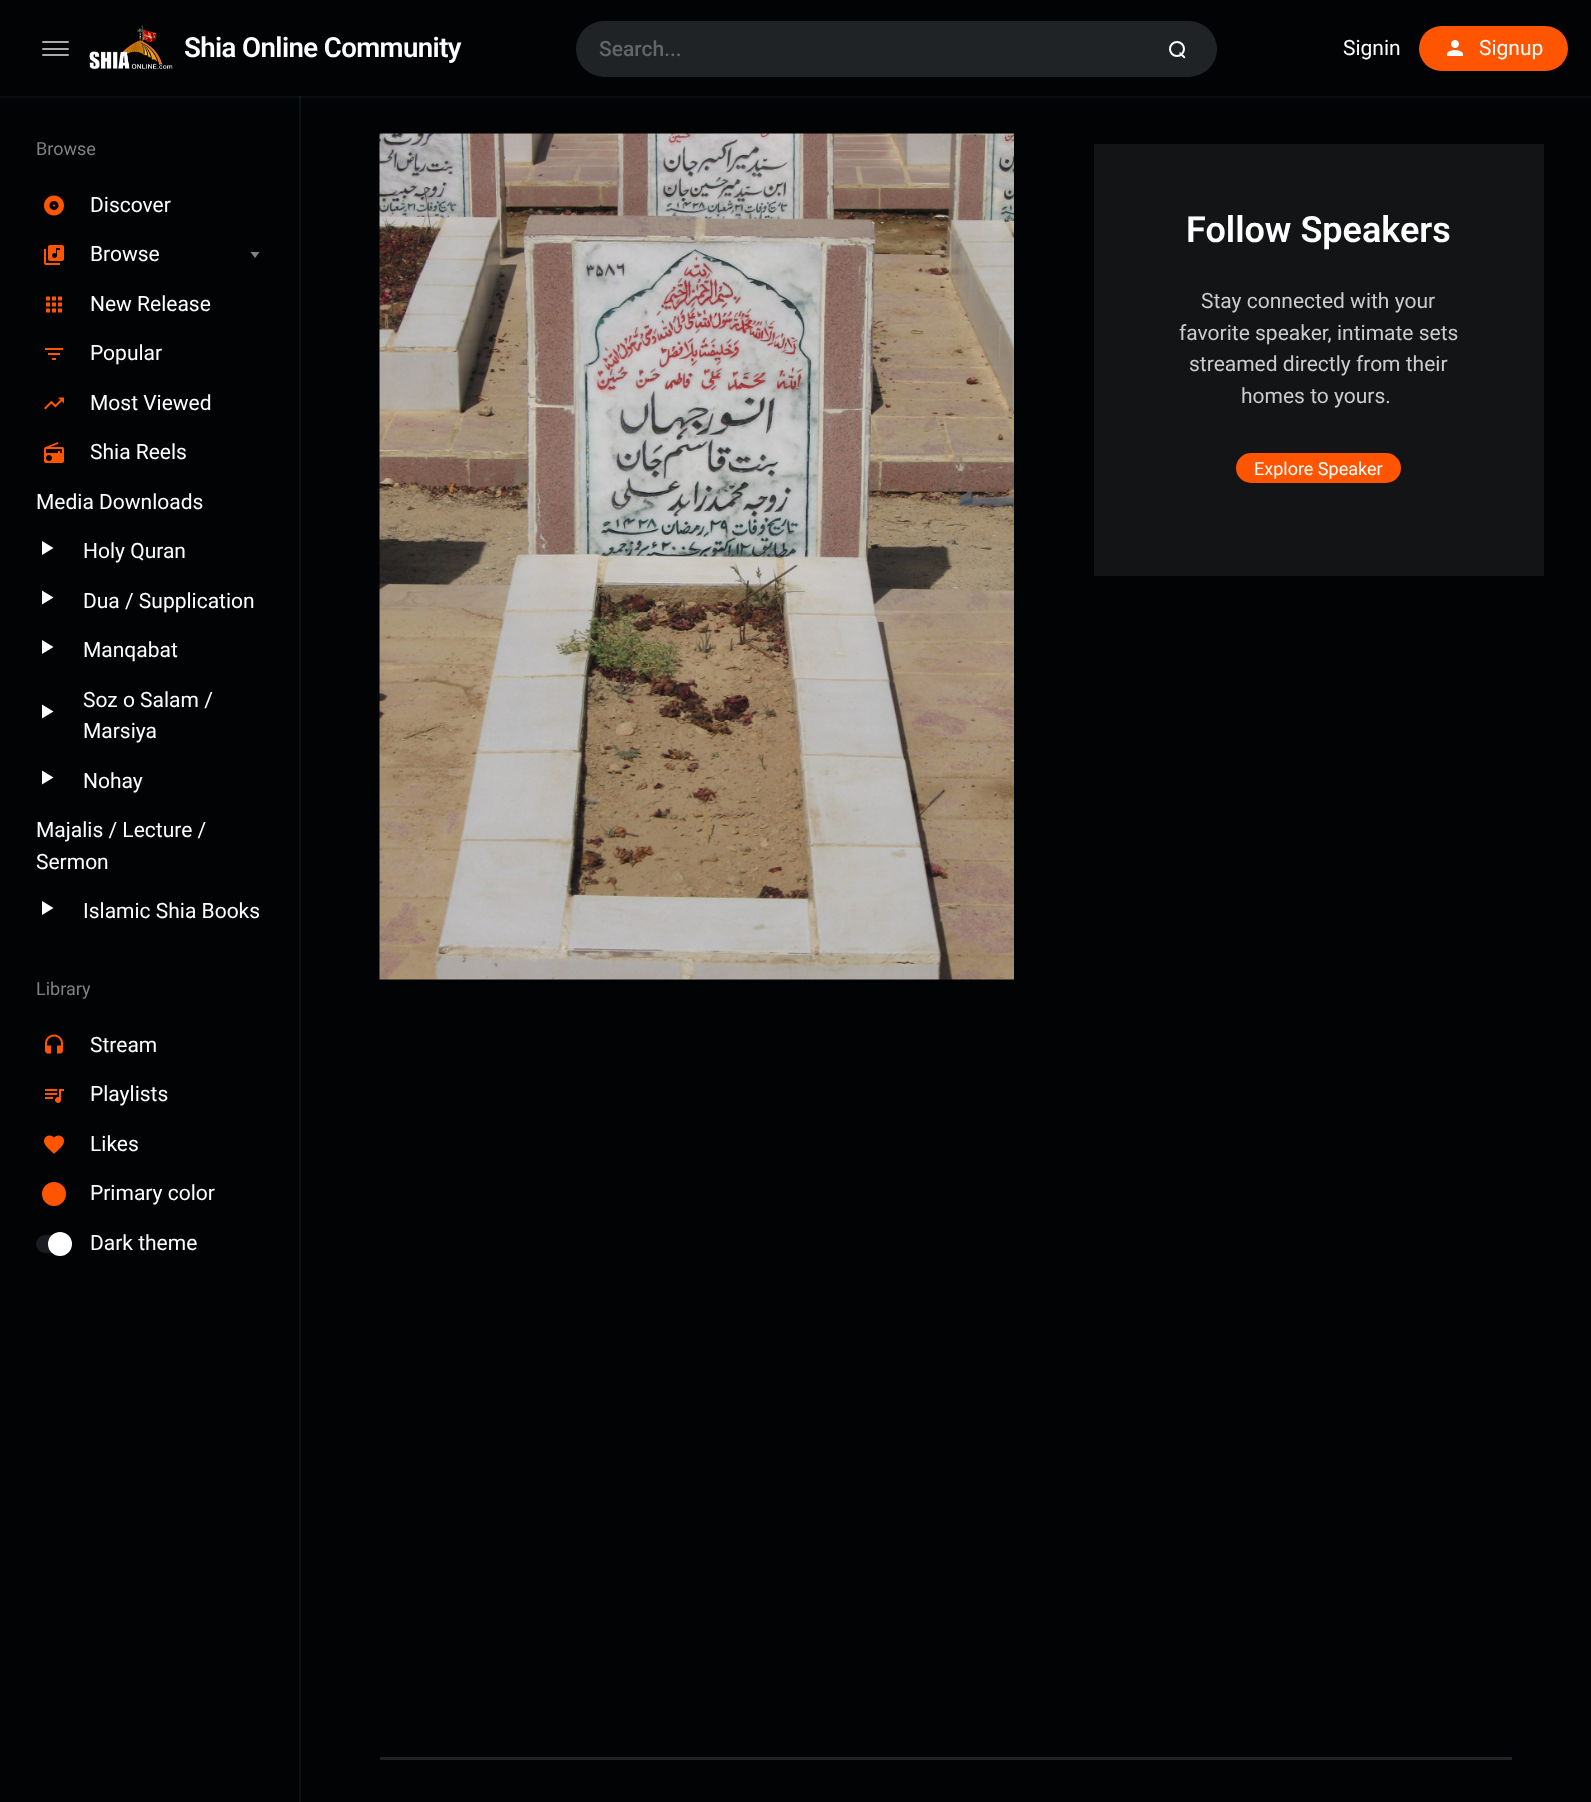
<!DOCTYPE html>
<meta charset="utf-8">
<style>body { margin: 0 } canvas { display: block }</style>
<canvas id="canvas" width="1591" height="1802"></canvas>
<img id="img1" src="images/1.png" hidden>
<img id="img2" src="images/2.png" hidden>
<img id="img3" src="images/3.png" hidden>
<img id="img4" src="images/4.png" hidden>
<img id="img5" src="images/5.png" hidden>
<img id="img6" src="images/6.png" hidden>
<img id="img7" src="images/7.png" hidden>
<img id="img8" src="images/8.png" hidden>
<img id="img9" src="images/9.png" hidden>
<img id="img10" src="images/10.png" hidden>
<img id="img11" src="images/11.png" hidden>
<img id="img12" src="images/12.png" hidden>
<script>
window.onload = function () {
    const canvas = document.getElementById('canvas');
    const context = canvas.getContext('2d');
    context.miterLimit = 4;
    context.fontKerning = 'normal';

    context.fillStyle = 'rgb(1, 3, 5)';
    context.fillRect(0, 0, 1591, 1802);
    context.fillStyle = 'rgb(14, 17, 20)';
    context.fillRect(299, 96, 2, 1706);
    context.fillStyle = 'rgba(130, 140, 150, 0.1)';
    context.filter = 'blur(1px)';
    context.beginPath();
    context.rect(0, 2, 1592, 96);
    context.fill();
    context.filter = 'none';
    context.fillStyle = 'rgb(1, 3, 5)';
    context.fillRect(0, 1, 1591, 95);
    context.fillStyle = 'rgb(170, 170, 170)';
    context.beginPath();
    context.roundRect(42, 48, 27, 2, 1);
    context.fill();
    context.beginPath();
    context.roundRect(42, 41, 27, 2, 1);
    context.fill();
    context.beginPath();
    context.roundRect(42, 54, 27, 2, 1);
    context.fill();
    context.drawImage(document.getElementById('img1'), 89, 25, 84, 45);
    context.fillStyle = 'rgb(32, 35, 38)';
    context.beginPath();
    context.roundRect(576, 21, 641, 56, 28);
    context.fill();
    context.beginPath();
    context.arc(1177, 49, 7, 0, 2 * Math.PI);
    context.strokeStyle = 'rgb(255, 255, 255)';
    context.lineWidth = 2;
    context.stroke();
    context.fillStyle = 'rgb(255, 255, 255)';
    context.beginPath();
    context.moveTo(1180.5, 52.5);
    context.lineTo(1184.5, 56);
    context.bezierCurveTo(1186, 58, 1185, 59, 1183, 57.5);
    context.lineTo(1179.5, 53.5);
    context.bezierCurveTo(1179, 52.5, 1180, 52, 1180.5, 52.5);
    context.closePath();
    context.fill();
    context.fillStyle = 'rgb(255, 85, 0)';
    context.beginPath();
    context.roundRect(1419, 26, 149, 45, 22.5);
    context.fill();
    context.drawImage(document.getElementById('img2'), 1447, 40, 16, 16);
    context.drawImage(document.getElementById('img3'), 44, 195, 20, 21);
    context.drawImage(document.getElementById('img4'), 44, 245, 20, 20);
    context.fillStyle = 'rgb(128, 129, 130)';
    context.beginPath();
    context.moveTo(250.5, 252);
    context.lineTo(259.5, 252);
    context.lineTo(255, 258);
    context.closePath();
    context.fill();
    context.drawImage(document.getElementById('img5'), 46, 296, 16, 17);
    context.drawImage(document.getElementById('img6'), 45, 348, 18, 12);
    context.drawImage(document.getElementById('img7'), 44, 397, 20, 13);
    context.drawImage(document.getElementById('img8'), 44, 442, 20, 21);
    context.fillStyle = 'rgb(255, 255, 255)';
    context.beginPath();
    context.moveTo(42, 541);
    context.lineTo(53.5, 548);
    context.lineTo(42, 555);
    context.closePath();
    context.fill();
    context.beginPath();
    context.moveTo(42, 590.5);
    context.lineTo(53.5, 597.5);
    context.lineTo(42, 604.5);
    context.closePath();
    context.fill();
    context.beginPath();
    context.moveTo(42, 640);
    context.lineTo(53.5, 647);
    context.lineTo(42, 654);
    context.closePath();
    context.fill();
    context.beginPath();
    context.moveTo(42, 704.5);
    context.lineTo(53.5, 711.5);
    context.lineTo(42, 718.5);
    context.closePath();
    context.fill();
    context.beginPath();
    context.moveTo(42, 770.5);
    context.lineTo(53.5, 777.5);
    context.lineTo(42, 784.5);
    context.closePath();
    context.fill();
    context.beginPath();
    context.moveTo(42, 901);
    context.lineTo(53.5, 908);
    context.lineTo(42, 915);
    context.closePath();
    context.fill();
    context.drawImage(document.getElementById('img9'), 45, 1034, 18, 20);
    context.drawImage(document.getElementById('img10'), 45, 1089, 19, 14);
    context.drawImage(document.getElementById('img11'), 44, 1135, 20, 19);
    context.fillStyle = 'rgb(255, 85, 0)';
    context.beginPath();
    context.arc(54, 1194, 12, 0, 2 * Math.PI);
    context.fill();
    context.fillStyle = 'rgb(25, 28, 32)';
    context.beginPath();
    context.roundRect(36, 1235, 36, 18, 9);
    context.fill();
    context.fillStyle = 'rgb(255, 255, 255)';
    context.beginPath();
    context.arc(60, 1244, 12, 0, 2 * Math.PI);
    context.fill();
    context.drawImage(document.getElementById('img12'), 379, 133, 635, 847);
    context.fillStyle = 'rgb(18, 20, 22)';
    context.fillRect(1094, 144, 450, 432);
    context.fillStyle = 'rgb(255, 85, 0)';
    context.beginPath();
    context.roundRect(1236, 453, 165, 30, 15);
    context.fill();
    context.fillStyle = 'rgb(31, 34, 38)';
    context.fillRect(380, 1757, 1132, 3);
    context.letterSpacing = '-0.6px';
    context.font = '600 27.6px Roboto';
    context.fillStyle = 'rgb(255, 255, 255)';
    context.fillText('Shia Online Community', 184, 57);
    context.letterSpacing = '0px';
    context.font = '500 21px Roboto';
    context.fillStyle = 'rgb(99, 101, 103)';
    context.fillText('Search...', 599, 56);
    context.font = '21px Roboto';
    context.fillStyle = 'rgb(255, 255, 255)';
    context.fillText('Signin', 1343, 55);
    context.fillText('Signup', 1479, 55);
    context.font = '18px Roboto';
    context.fillStyle = 'rgb(128, 129, 130)';
    context.fillText('Browse', 36, 155);
    context.font = '21px Roboto';
    context.fillStyle = 'rgb(255, 255, 255)';
    context.fillText('Discover', 90, 212);
    context.fillText('Browse', 90, 261);
    context.fillText('New Release', 90, 311);
    context.fillText('Popular', 90, 360);
    context.fillText('Most Viewed', 90, 410);
    context.fillText('Shia Reels', 90, 459);
    context.fillText('Media Downloads', 36, 509);
    context.fillText('Holy Quran', 83, 558);
    context.fillText('Dua / Supplication', 83, 608);
    context.fillText('Manqabat', 83, 657);
    context.fillText('Soz o Salam /', 83, 707);
    context.fillText('Marsiya', 83, 738);
    context.fillText('Nohay', 83, 788);
    context.fillText('Majalis / Lecture /', 36, 837);
    context.fillText('Sermon', 36, 869);
    context.fillText('Islamic Shia Books', 83, 918);
    context.font = '18px Roboto';
    context.fillStyle = 'rgb(128, 129, 130)';
    context.fillText('Library', 36, 995);
    context.font = '21px Roboto';
    context.fillStyle = 'rgb(255, 255, 255)';
    context.fillText('Stream', 90, 1052);
    context.fillText('Playlists', 90, 1101);
    context.fillText('Likes', 90, 1151);
    context.fillText('Primary color', 90, 1200);
    context.fillText('Dark theme', 90, 1250);
    context.font = '600 36px Roboto';
    context.fillText('Follow Speakers', 1186, 242);
    context.font = '21px Roboto';
    context.fillStyle = 'rgb(204, 204, 204)';
    context.fillText('Stay connected with your', 1201, 308);
    context.fillText('favorite speaker, intimate sets', 1179, 340);
    context.fillText('streamed directly from their', 1189, 371);
    context.fillText('homes to yours.', 1241, 403);
    context.font = '18px Roboto';
    context.fillStyle = 'rgb(255, 255, 255)';
    context.fillText('Explore Speaker', 1254, 475);
};
</script>
